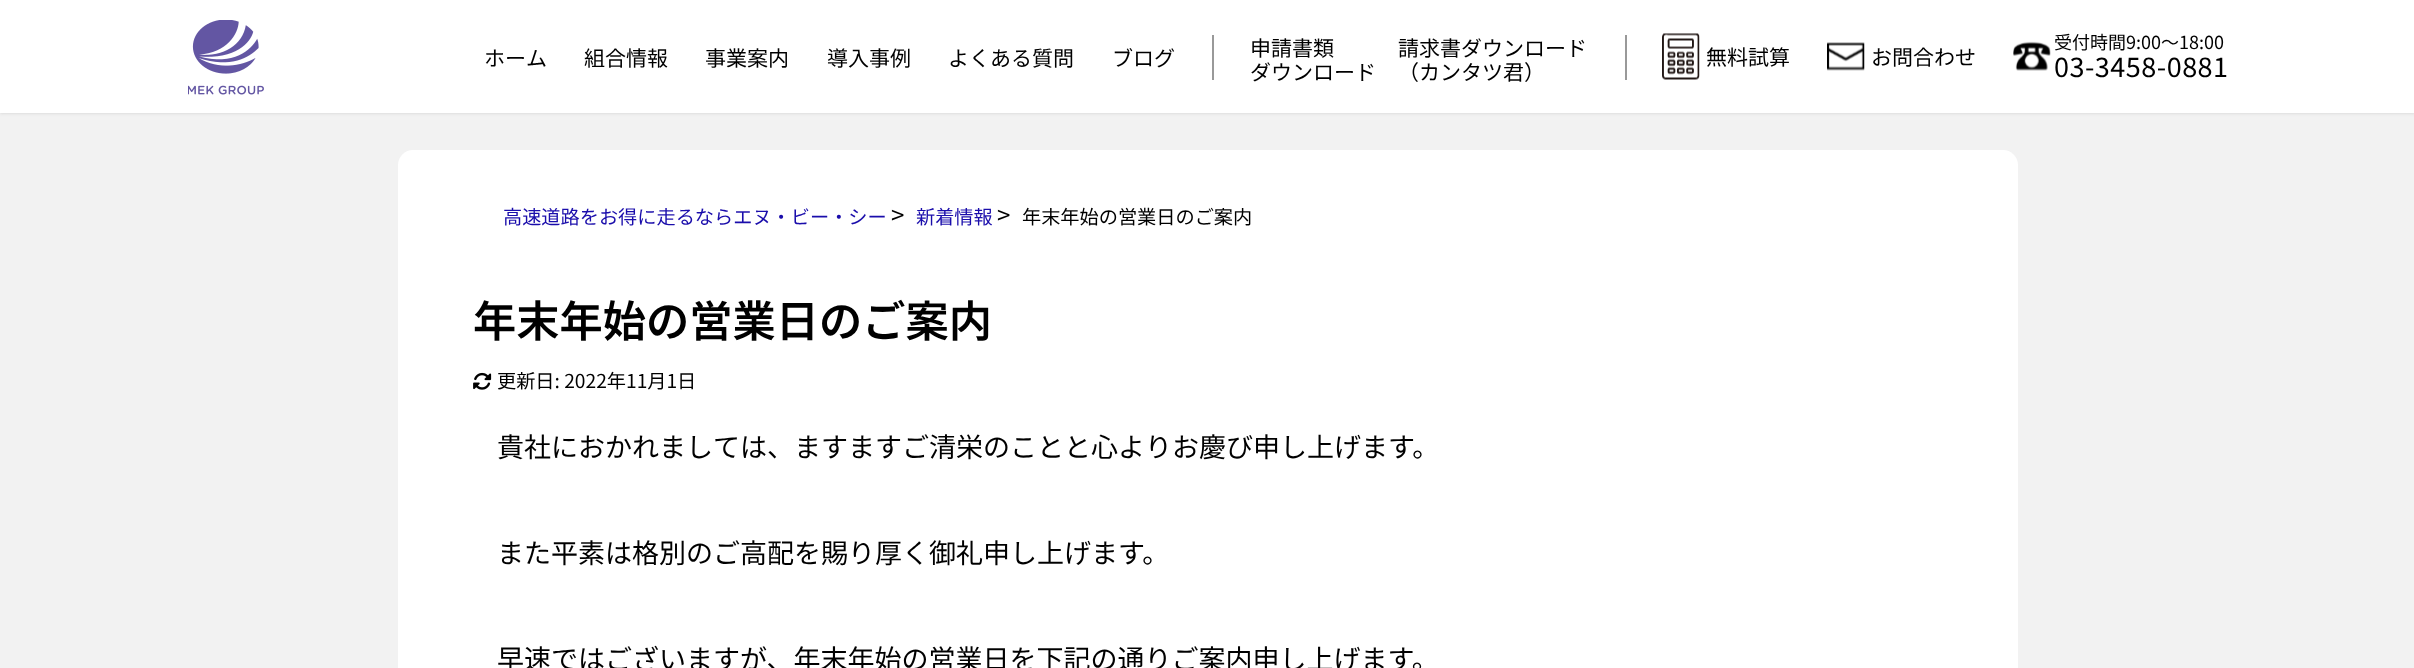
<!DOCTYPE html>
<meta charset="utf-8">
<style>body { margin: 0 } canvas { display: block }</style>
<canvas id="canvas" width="2414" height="668"></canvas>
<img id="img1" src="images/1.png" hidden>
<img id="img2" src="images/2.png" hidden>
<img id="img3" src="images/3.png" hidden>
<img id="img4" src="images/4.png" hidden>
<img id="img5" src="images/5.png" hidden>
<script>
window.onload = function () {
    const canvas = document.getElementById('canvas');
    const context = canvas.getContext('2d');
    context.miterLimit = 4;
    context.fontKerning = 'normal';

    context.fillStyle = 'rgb(242, 242, 242)';
    context.fillRect(0, 0, 2414, 668);
    context.fillStyle = 'rgb(221, 221, 221)';
    context.filter = 'blur(1.5px)';
    context.beginPath();
    context.rect(0, 2, 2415, 112);
    context.fill();
    context.filter = 'none';
    context.fillStyle = 'rgb(255, 255, 255)';
    context.fillRect(0, 0, 2414, 113);
    context.drawImage(document.getElementById('img1'), 188, 20, 76, 75);
    context.fillStyle = 'rgb(153, 153, 153)';
    context.fillRect(1212, 35, 2, 45);
    context.fillRect(1625, 35, 2, 45);
    context.drawImage(document.getElementById('img2'), 1662, 33, 38, 47);
    context.drawImage(document.getElementById('img3'), 1827, 42, 38, 29);
    context.drawImage(document.getElementById('img4'), 2013, 41, 38, 30);
    context.fillStyle = 'rgb(255, 255, 255)';
    context.beginPath();
    context.roundRect(398, 150, 1620, 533, 15);
    context.fill();
    context.drawImage(document.getElementById('img5'), 473, 372, 19, 18);
    context.font = '21px Noto Sans JP';
    context.fillStyle = 'rgb(0, 0, 0)';
    context.fillText('ホーム', 484, 66);
    context.fillText('組合情報', 584, 66);
    context.fillText('事業案内', 705, 66);
    context.fillText('導入事例', 827, 66);
    context.fillText('よくある質問', 948, 66);
    context.fillText('ブログ', 1112, 66);
    context.fillText('申請書類', 1250, 56);
    context.fillText('ダウンロード', 1250, 80);
    context.fillText('請求書ダウンロード', 1398, 56);
    context.fillText('（カンタツ君）', 1398, 80);
    context.fillText('無料試算', 1706, 65);
    context.fillText('お問合わせ', 1871, 65);
    context.font = '18px Noto Sans JP';
    context.fillText('受付時間9:00～18:00', 2054, 49);
    context.letterSpacing = '0.5px';
    context.font = '27px Noto Sans JP';
    context.fillText('03-3458-0881', 2054, 77);
    context.letterSpacing = '0px';
    context.font = '19.2px Noto Sans JP';
    context.fillStyle = 'rgb(26, 13, 171)';
    context.fillText('高速道路をお得に走るならエヌ・ビー・シー', 503, 224);
    context.letterSpacing = '12px';
    context.font = '24px Noto Sans JP';
    context.fillStyle = 'rgb(0, 0, 0)';
    context.fillText('>', 891, 224);
    context.letterSpacing = '0px';
    context.font = '19.2px Noto Sans JP';
    context.fillStyle = 'rgb(26, 13, 171)';
    context.fillText('新着情報', 916, 224);
    context.letterSpacing = '12px';
    context.font = '24px Noto Sans JP';
    context.fillStyle = 'rgb(0, 0, 0)';
    context.fillText('>', 997, 224);
    context.letterSpacing = '0px';
    context.font = '19.2px Noto Sans JP';
    context.fillText('年末年始の営業日のご案内', 1022, 224);
    context.font = '600 43.25px Noto Sans JP';
    context.fillText('年末年始の営業日のご案内', 473, 337);
    context.font = '19.2px Noto Sans JP';
    context.fillText('更新日: 2022年11月1日', 497, 388);
    context.font = '27px Noto Sans JP';
    context.fillText('貴社におかれましては、ますますご清栄のことと心よりお慶び申し上げます。', 497, 457);
    context.fillText('また平素は格別のご高配を賜り厚く御礼申し上げます。', 497, 563);
    context.fillText('早速ではございますが、年末年始の営業日を下記の通りご案内申し上げます。', 497, 669);
};
</script>
